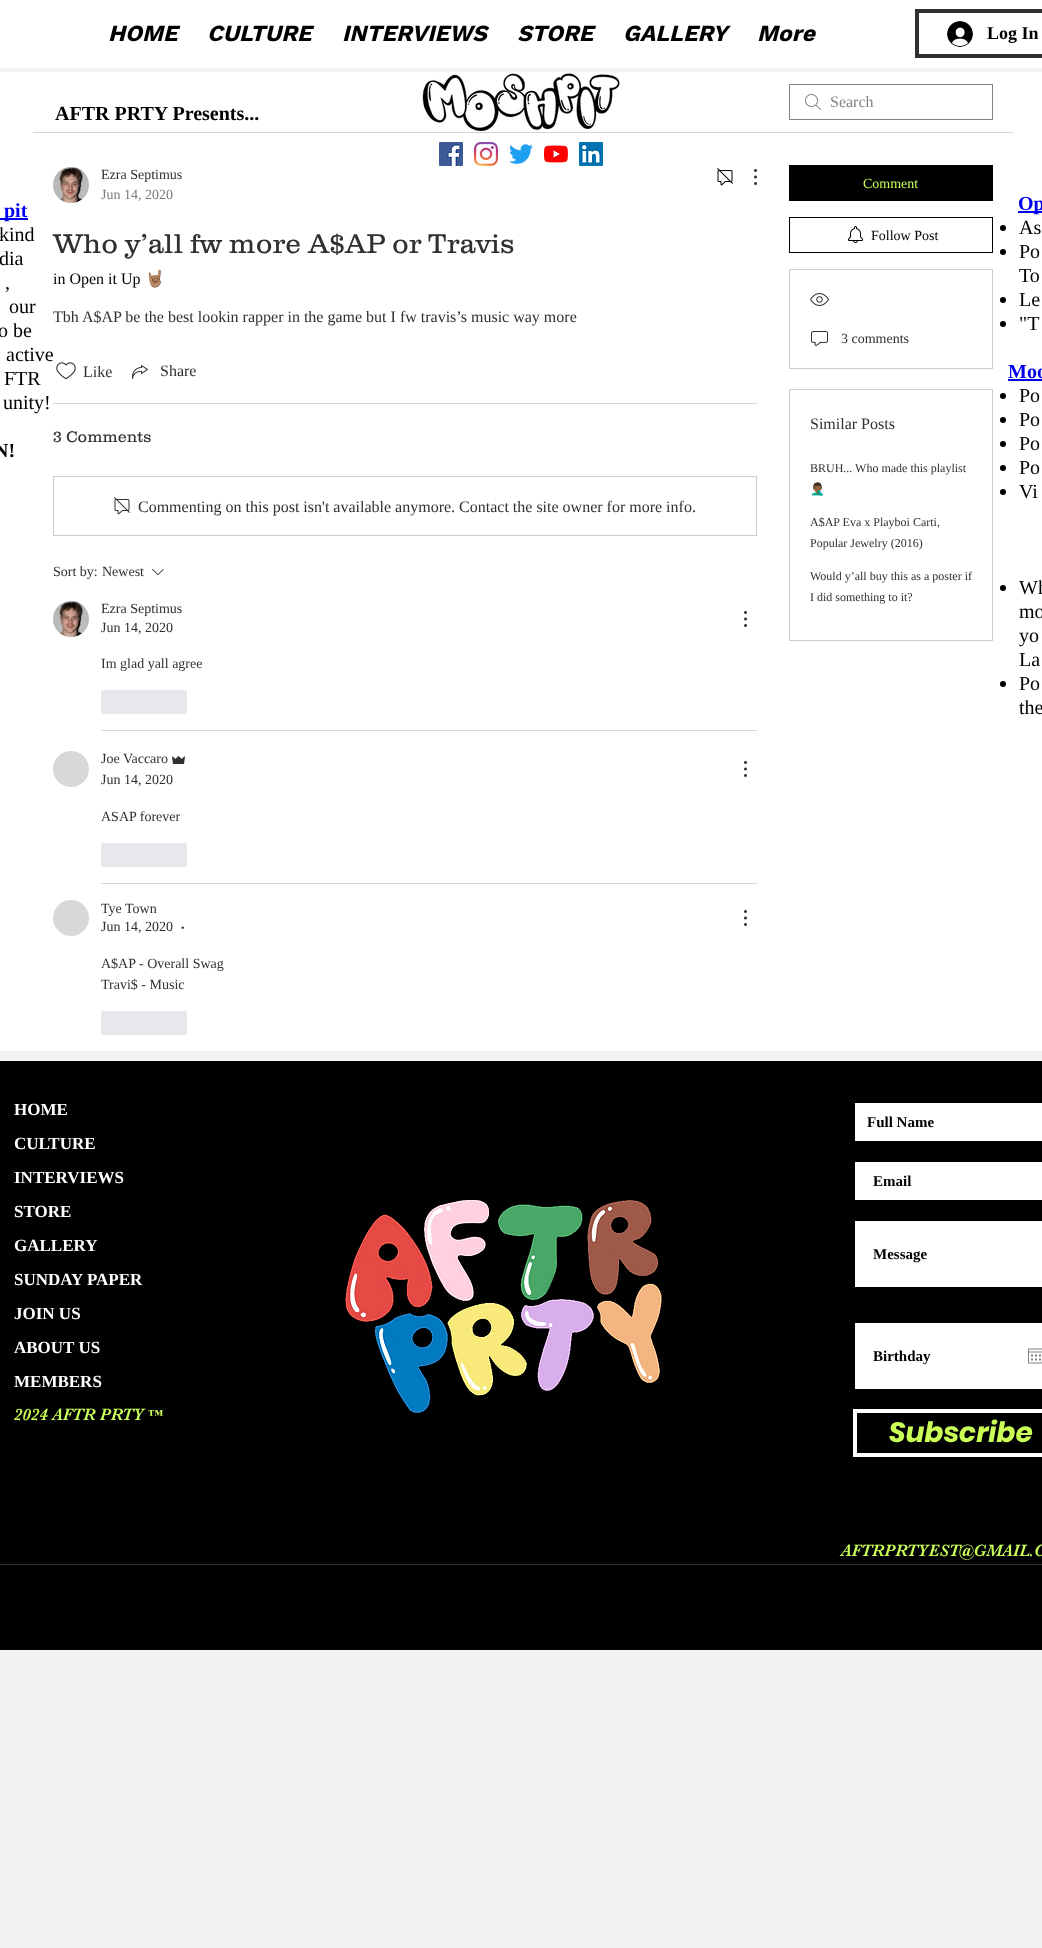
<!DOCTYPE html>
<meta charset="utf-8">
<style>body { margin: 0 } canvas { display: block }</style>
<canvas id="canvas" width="1042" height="1948"></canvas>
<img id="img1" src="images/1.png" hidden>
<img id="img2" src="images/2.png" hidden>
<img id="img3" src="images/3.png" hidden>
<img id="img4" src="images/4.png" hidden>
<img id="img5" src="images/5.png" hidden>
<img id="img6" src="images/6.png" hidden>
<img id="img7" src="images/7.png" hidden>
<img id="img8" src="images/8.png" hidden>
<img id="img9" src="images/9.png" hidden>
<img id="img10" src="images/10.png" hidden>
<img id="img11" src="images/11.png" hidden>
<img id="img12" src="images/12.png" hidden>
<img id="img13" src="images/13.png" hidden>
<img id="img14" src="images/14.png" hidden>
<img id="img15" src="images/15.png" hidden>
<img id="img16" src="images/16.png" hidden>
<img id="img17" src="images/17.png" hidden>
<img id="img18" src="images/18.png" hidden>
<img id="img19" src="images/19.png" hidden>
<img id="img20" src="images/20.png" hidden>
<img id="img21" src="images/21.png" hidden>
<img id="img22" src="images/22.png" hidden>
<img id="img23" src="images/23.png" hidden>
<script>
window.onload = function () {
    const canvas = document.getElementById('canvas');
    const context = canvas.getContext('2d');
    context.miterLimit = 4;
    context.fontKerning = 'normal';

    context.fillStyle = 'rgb(242, 242, 242)';
    context.fillRect(0, 0, 1042, 1948);
    context.fillStyle = 'rgb(255, 255, 255)';
    context.fillRect(0, 0, 1042, 68);
    context.strokeStyle = 'rgb(48, 48, 48)';
    context.lineWidth = 4;
    context.strokeRect(917, 11, 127, 45);
    context.drawImage(document.getElementById('img1'), 947, 21, 26, 26);
    context.fillRect(0, 72, 1042, 979);
    context.drawImage(document.getElementById('img2'), 422, 73, 198, 59);
    context.fillStyle = 'rgb(214, 214, 214)';
    context.fillRect(33, 132, 980, 1);
    context.drawImage(document.getElementById('img3'), 805, 94, 16, 16);
    context.strokeStyle = 'rgb(131, 131, 131)';
    context.lineWidth = 1;
    context.strokeRect(789.5, 84.5, 203, 35);
    context.drawImage(document.getElementById('img4'), 53, 167, 36, 36);
    context.drawImage(document.getElementById('img5'), 717, 168, 16, 18);
    context.drawImage(document.getElementById('img6'), 754, 169, 3, 16);
    context.drawImage(document.getElementById('img7'), 56, 362, 20, 18);
    context.drawImage(document.getElementById('img8'), 132, 365, 16, 14);
    context.fillRect(53, 403, 704, 1);
    context.strokeStyle = 'rgb(204, 204, 204)';
    context.strokeRect(53.5, 476.5, 703, 59);
    context.drawImage(document.getElementById('img9'), 114, 497, 16, 18);
    context.drawImage(document.getElementById('img10'), 152, 568, 12, 8);
    context.drawImage(document.getElementById('img11'), 53, 601, 36, 36);
    context.drawImage(document.getElementById('img12'), 744, 611, 3, 16);
    context.fillStyle = 'rgb(231, 232, 237)';
    context.beginPath();
    context.roundRect(101, 690, 86, 24, 2);
    context.fill();
    context.fillStyle = 'rgb(214, 214, 214)';
    context.fillRect(101, 730, 656, 1);
    context.fillStyle = 'rgb(216, 216, 216)';
    context.beginPath();
    context.arc(71, 769, 18, 0, 2 * Math.PI);
    context.fill();
    context.drawImage(document.getElementById('img13'), 172, 756, 13, 8);
    context.drawImage(document.getElementById('img12'), 744, 761, 3, 16);
    context.fillStyle = 'rgb(231, 232, 237)';
    context.beginPath();
    context.roundRect(101, 843, 86, 24, 2);
    context.fill();
    context.fillStyle = 'rgb(214, 214, 214)';
    context.fillRect(101, 883, 656, 1);
    context.fillStyle = 'rgb(216, 216, 216)';
    context.beginPath();
    context.arc(71, 918, 18, 0, 2 * Math.PI);
    context.fill();
    context.drawImage(document.getElementById('img12'), 744, 910, 3, 16);
    context.fillStyle = 'rgb(231, 232, 237)';
    context.beginPath();
    context.roundRect(101, 1011, 86, 24, 2);
    context.fill();
    context.fillStyle = 'rgb(0, 0, 0)';
    context.fillRect(789, 165, 204, 36);
    context.strokeStyle = 'rgb(0, 0, 0)';
    context.strokeRect(789.5, 217.5, 203, 35);
    context.drawImage(document.getElementById('img14'), 848, 226, 15, 17);
    context.strokeStyle = 'rgb(204, 204, 204)';
    context.strokeRect(789.5, 269.5, 203, 99);
    context.drawImage(document.getElementById('img15'), 810, 293, 19, 13);
    context.drawImage(document.getElementById('img16'), 811, 331, 17, 15);
    context.strokeRect(789.5, 389.5, 203, 251);
    context.drawImage(document.getElementById('img17'), 439, 142, 24, 24);
    context.drawImage(document.getElementById('img18'), 474, 142, 24, 24);
    context.drawImage(document.getElementById('img19'), 509, 144, 24, 20);
    context.drawImage(document.getElementById('img20'), 544, 145, 24, 18);
    context.drawImage(document.getElementById('img21'), 579, 142, 24, 24);
    context.fillStyle = 'rgb(0, 0, 238)';
    context.fillRect(0, 218, 28, 2);
    context.fillRect(1018, 211, 24, 2);
    context.fillStyle = 'rgb(0, 0, 0)';
    context.beginPath();
    context.arc(1003, 228, 3, 0, 2 * Math.PI);
    context.fill();
    context.beginPath();
    context.arc(1003, 252, 3, 0, 2 * Math.PI);
    context.fill();
    context.beginPath();
    context.arc(1003, 300, 3, 0, 2 * Math.PI);
    context.fill();
    context.beginPath();
    context.arc(1003, 324, 3, 0, 2 * Math.PI);
    context.fill();
    context.fillStyle = 'rgb(0, 0, 238)';
    context.fillRect(1008, 379, 34, 2);
    context.fillStyle = 'rgb(0, 0, 0)';
    context.beginPath();
    context.arc(1003, 396, 3, 0, 2 * Math.PI);
    context.fill();
    context.beginPath();
    context.arc(1003, 420, 3, 0, 2 * Math.PI);
    context.fill();
    context.beginPath();
    context.arc(1003, 444, 3, 0, 2 * Math.PI);
    context.fill();
    context.beginPath();
    context.arc(1003, 468, 3, 0, 2 * Math.PI);
    context.fill();
    context.beginPath();
    context.arc(1003, 492, 3, 0, 2 * Math.PI);
    context.fill();
    context.beginPath();
    context.arc(1003, 588, 3, 0, 2 * Math.PI);
    context.fill();
    context.beginPath();
    context.arc(1003, 684, 3, 0, 2 * Math.PI);
    context.fill();
    context.fillRect(0, 1061, 1042, 589);
    context.fillStyle = 'rgb(255, 255, 255)';
    context.fillRect(855, 1103, 187, 38);
    context.fillRect(855, 1162, 187, 38);
    context.fillRect(855, 1221, 187, 66);
    context.fillRect(855, 1323, 187, 66);
    context.drawImage(document.getElementById('img22'), 1028, 1348, 14, 16);
    context.strokeStyle = 'rgb(255, 255, 254)';
    context.lineWidth = 4;
    context.strokeRect(855, 1411, 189, 44);
    context.drawImage(document.getElementById('img23'), 345, 1196, 318, 217);
    context.fillStyle = 'rgb(48, 48, 48)';
    context.fillRect(0, 1564, 1042, 1);
    context.font = 'italic bold 23px Work Sans';
    context.fillStyle = 'rgb(0, 0, 0)';
    context.fillText('HOME', 108, 41);
    context.fillText('CULTURE', 207, 41);
    context.fillText('INTERVIEWS', 342, 41);
    context.fillText('STORE', 517, 41);
    context.fillText('GALLERY', 623, 41);
    context.fillText('More', 757, 41);
    context.font = 'bold 18px Liberation Serif';
    context.fillText('Log In', 987, 39);
    context.font = '16px Liberation Serif';
    context.fillStyle = 'rgb(131, 131, 131)';
    context.fillText('Search', 830, 107);
    context.font = '14px Liberation Serif';
    context.fillStyle = 'rgb(48, 48, 48)';
    context.fillText('Ezra Septimus', 101, 179);
    context.fillStyle = 'rgb(123, 123, 123)';
    context.fillText('Jun 14, 2020', 101, 199);
    context.font = '300 28px "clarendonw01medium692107"';
    context.fillStyle = 'rgb(48, 48, 48)';
    context.fillText('Who y’all fw more A$AP or Travis', 53, 253);
    context.font = '16px Liberation Serif';
    context.fillStyle = 'rgb(0, 0, 0)';
    context.fillText('in Open it Up', 53, 284);
    context.font = '16px Noto Color Emoji';
    context.fillText('🤘🏽', 145, 284);
    context.font = '16px Liberation Serif';
    context.fillStyle = 'rgb(48, 48, 48)';
    context.fillText('Tbh A$AP be the best lookin rapper in the game but I fw travis’s music way more', 53, 322);
    context.fillText('Like', 83, 377);
    context.fillText('Share', 160, 376);
    context.font = '300 16px "clarendonw01medium692107"';
    context.fillText('3 Comments', 53, 442);
    context.font = '16px Liberation Serif';
    context.fillText('Commenting on this post isn\'t available anymore. Contact the site owner for more info.', 138, 512);
    context.font = '14px Liberation Serif';
    context.fillText('Sort by:', 53, 576);
    context.fillText('Newest', 102, 576);
    context.fillText('Ezra Septimus', 101, 613);
    context.fillText('Jun 14, 2020', 101, 632);
    context.fillText('Im glad yall agree', 101, 668);
    context.fillText('Joe Vaccaro', 101, 763);
    context.fillText('Jun 14, 2020', 101, 784);
    context.fillText('ASAP forever', 101, 821);
    context.fillText('Tye Town', 101, 913);
    context.fillText('Jun 14, 2020', 101, 931);
    context.font = '10px Liberation Serif';
    context.fillText('•', 181, 931);
    context.font = '14px Liberation Serif';
    context.fillText('A$AP - Overall Swag', 101, 968);
    context.fillText('Travi$ - Music', 101, 989);
    context.fillStyle = 'rgb(202, 255, 87)';
    context.fillText('Comment', 863, 188);
    context.fillStyle = 'rgb(0, 0, 0)';
    context.fillText('Follow Post', 871, 240);
    context.fillStyle = 'rgb(48, 48, 48)';
    context.fillText('3 comments', 841, 343);
    context.font = '16px Liberation Serif';
    context.fillText('Similar Posts', 810, 429);
    context.font = '12px Liberation Serif';
    context.fillText('BRUH... Who made this playlist', 810, 472);
    context.font = '12px Noto Color Emoji';
    context.fillText('🤦🏾‍♂️', 810, 493);
    context.font = '12px Liberation Serif';
    context.fillText('A$AP Eva x Playboi Carti,', 810, 526);
    context.fillText('Popular Jewelry (2016)', 810, 547);
    context.fillText('Would y’all buy this as a poster if', 810, 580);
    context.fillText('I did something to it?', 810, 601);
    context.font = 'bold 20px Liberation Serif';
    context.fillStyle = 'rgb(0, 0, 0)';
    context.fillText('AFTR PRTY Presents...', 55, 120);
    context.fillStyle = 'rgb(0, 0, 238)';
    context.fillText('pit', 4, 217);
    context.font = '20px Liberation Serif';
    context.fillStyle = 'rgb(0, 0, 0)';
    context.fillText('kind', -1, 241);
    context.fillText('dia', -1, 265);
    context.fillText(',', 5, 289);
    context.fillText('our', 9, 313);
    context.fillText('o be', -2, 337);
    context.fillText('active', 6, 361);
    context.fillText('FTR', 4, 385);
    context.fillText('unity!', 3, 409);
    context.font = 'bold 20px Liberation Serif';
    context.fillText('N!', -6, 457);
    context.fillStyle = 'rgb(0, 0, 238)';
    context.fillText('Op', 1018, 210);
    context.font = '20px Liberation Serif';
    context.fillStyle = 'rgb(0, 0, 0)';
    context.fillText('As', 1019, 234);
    context.fillText('Po', 1019, 258);
    context.fillText('To', 1019, 282);
    context.fillText('Le', 1019, 306);
    context.fillText('"T', 1019, 330);
    context.font = 'bold 20px Liberation Serif';
    context.fillStyle = 'rgb(0, 0, 238)';
    context.fillText('Moo', 1008, 378);
    context.font = '20px Liberation Serif';
    context.fillStyle = 'rgb(0, 0, 0)';
    context.fillText('Po', 1019, 402);
    context.fillText('Po', 1019, 426);
    context.fillText('Po', 1019, 450);
    context.fillText('Po', 1019, 474);
    context.fillText('Vi', 1019, 498);
    context.fillText('Wh', 1019, 594);
    context.fillText('mo', 1019, 618);
    context.fillText('yo', 1019, 642);
    context.fillText('La', 1019, 666);
    context.fillText('Po', 1019, 690);
    context.fillText('the', 1019, 714);
    context.font = 'bold 17px Liberation Serif';
    context.fillStyle = 'rgb(255, 255, 255)';
    context.fillText('HOME', 14, 1115);
    context.fillText('CULTURE', 14, 1149);
    context.fillText('INTERVIEWS', 14, 1183);
    context.fillText('STORE', 14, 1217);
    context.fillText('GALLERY', 14, 1251);
    context.fillText('SUNDAY PAPER', 14, 1285);
    context.fillText('JOIN US', 14, 1319);
    context.fillText('ABOUT US', 14, 1353);
    context.fillText('MEMBERS', 14, 1387);
    context.font = '17px "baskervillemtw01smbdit"';
    context.fillStyle = 'rgb(202, 255, 87)';
    context.fillText('2024 AFTR PRTY', 14, 1420);
    context.font = '15px "baskervillemtw01smbdit"';
    context.fillText('™', 148, 1420);
    context.font = 'bold 15px Liberation Serif';
    context.fillStyle = 'rgb(0, 0, 0)';
    context.fillText('Full Name', 867, 1127);
    context.fillText('Email', 873, 1186);
    context.fillText('Message', 873, 1259);
    context.fillText('Birthday', 873, 1361);
    context.font = 'italic bold 28px Poppins';
    context.fillStyle = 'rgb(202, 255, 87)';
    context.fillText('Subscribe', 889, 1442);
    context.font = '17px "baskervillemtw01smbdit"';
    context.fillText('AFTRPRTYEST@GMAIL.C', 841, 1556);
};
</script>
